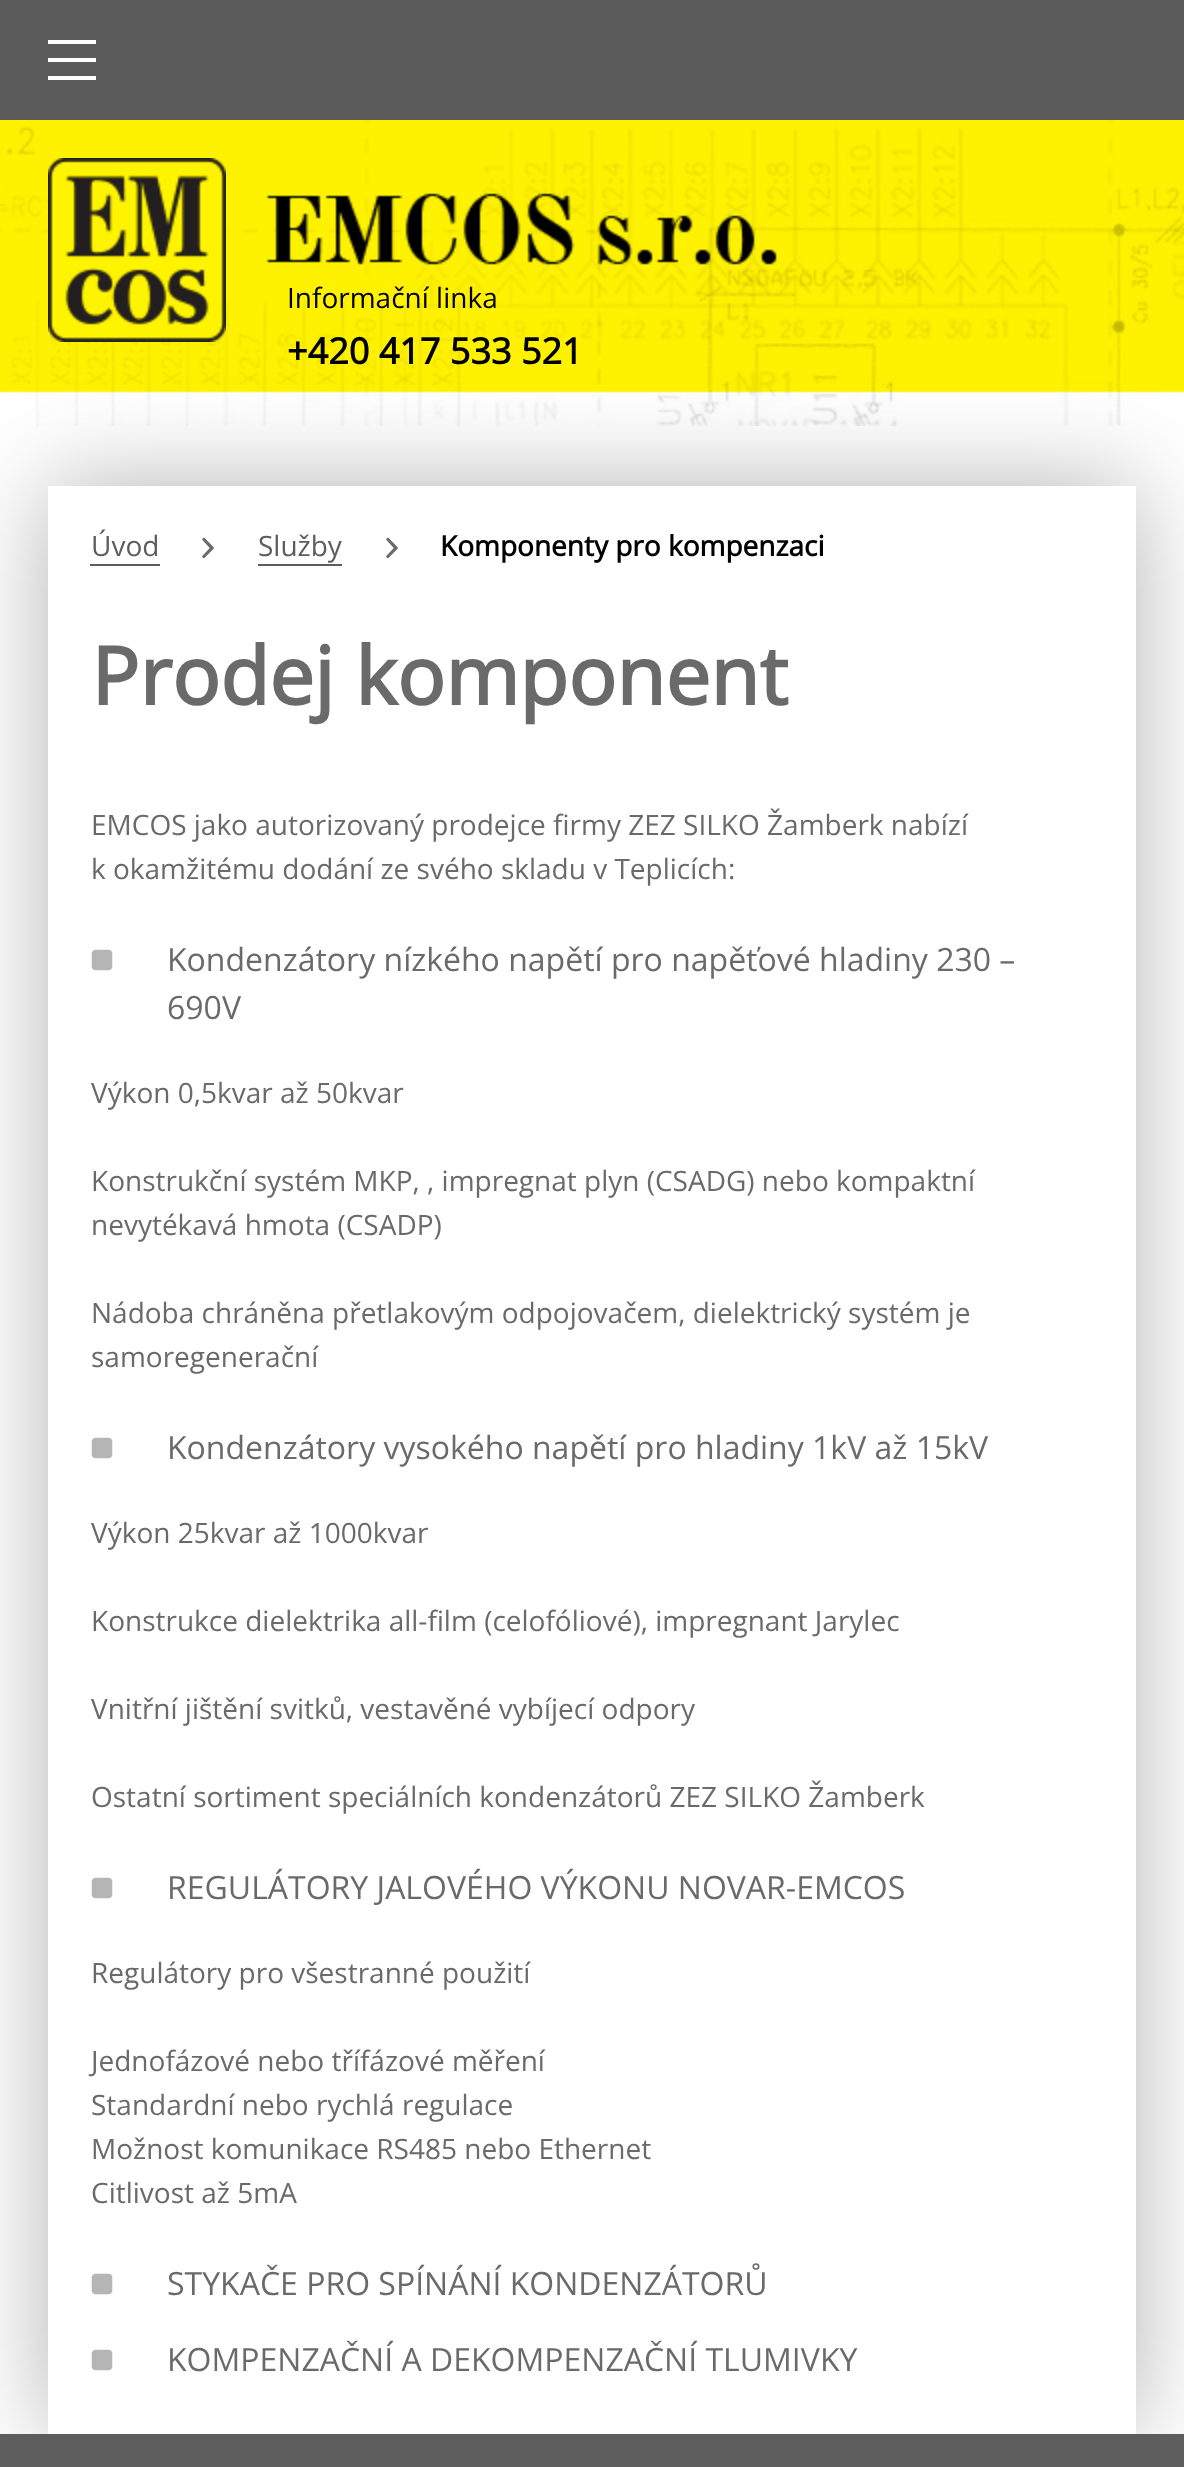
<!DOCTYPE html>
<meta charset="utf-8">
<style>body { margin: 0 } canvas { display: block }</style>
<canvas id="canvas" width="1184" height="2467"></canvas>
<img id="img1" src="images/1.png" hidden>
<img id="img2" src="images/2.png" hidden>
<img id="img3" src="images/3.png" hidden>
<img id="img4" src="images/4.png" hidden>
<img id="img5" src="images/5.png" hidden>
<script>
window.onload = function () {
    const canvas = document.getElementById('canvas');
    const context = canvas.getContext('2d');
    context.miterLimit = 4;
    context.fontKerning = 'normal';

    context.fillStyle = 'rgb(255, 255, 255)';
    context.fillRect(0, 0, 1184, 2467);
    context.fillStyle = 'rgb(91, 91, 91)';
    context.fillRect(0, 0, 1184, 120);
    context.fillStyle = 'rgb(255, 255, 255)';
    context.fillRect(48, 58, 48, 4);
    context.fillRect(48, 40, 48, 4);
    context.fillRect(48, 76, 48, 4);
    context.drawImage(document.getElementById('img1'), 0, 120, 1184, 306);
    context.fillStyle = 'rgba(255, 255, 255, 0.2)';
    context.fillRect(112, 424, 784, 2);
    context.save();
    context.beginPath();
    context.moveTo(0, 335);
    context.lineTo(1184, 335);
    context.lineTo(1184, 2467);
    context.lineTo(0, 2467);
    context.closePath();
    context.moveTo(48, 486);
    context.lineTo(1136, 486);
    context.lineTo(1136, 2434);
    context.lineTo(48, 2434);
    context.closePath();
    context.clip('evenodd');
    context.fillStyle = 'rgba(0, 0, 0, 0.3)';
    context.filter = 'blur(50px)';
    context.beginPath();
    context.rect(48, 486, 1088, 1948);
    context.fill();
    context.filter = 'none';
    context.restore();
    context.drawImage(document.getElementById('img2'), 48, 158, 178, 184);
    context.drawImage(document.getElementById('img3'), 266, 193, 511, 72);
    context.fillStyle = 'rgb(93, 93, 93)';
    context.fillRect(90, 564, 70, 2);
    context.drawImage(document.getElementById('img4'), 202, 537, 12, 22);
    context.fillRect(258, 564, 84, 2);
    context.drawImage(document.getElementById('img4'), 386, 537, 12, 22);
    context.drawImage(document.getElementById('img5'), 91, 949, 22, 22);
    context.drawImage(document.getElementById('img5'), 91, 1437, 22, 22);
    context.drawImage(document.getElementById('img5'), 91, 1877, 22, 22);
    context.drawImage(document.getElementById('img5'), 91, 2273, 22, 22);
    context.drawImage(document.getElementById('img5'), 91, 2349, 22, 22);
    context.fillRect(0, 2434, 1184, 33);
    context.font = '28px Open Sans';
    context.fillStyle = 'rgb(0, 0, 0)';
    context.fillText('Informační linka', 287, 308);
    context.font = 'bold 36px Open Sans';
    context.fillText('+420 417 533 521', 287, 364);
    context.font = '28px Open Sans';
    context.fillStyle = 'rgb(93, 93, 93)';
    context.fillText('Úvod', 91, 556);
    context.fillText('Služby', 258, 556);
    context.font = 'bold 28px Open Sans';
    context.fillStyle = 'rgb(0, 0, 0)';
    context.fillText('Komponenty pro kompenzaci', 440, 556);
    context.font = 'bold 80px Open Sans';
    context.fillStyle = 'rgb(106, 106, 106)';
    context.fillText('Prodej komponent', 91, 705);
    context.font = '28px Open Sans';
    context.fillText('EMCOS jako autorizovaný prodejce firmy ZEZ SILKO Žamberk nabízí', 91, 835);
    context.fillText('k okamžitému dodání ze svého skladu v Teplicích:', 91, 879);
    context.font = '32px Open Sans';
    context.fillText('Kondenzátory nízkého napětí pro napěťové hladiny 230 –', 167, 971);
    context.fillText('690V', 167, 1019);
    context.font = '28px Open Sans';
    context.fillText('Výkon 0,5kvar až 50kvar', 91, 1103);
    context.fillText('Konstrukční systém MKP, , impregnat plyn (CSADG) nebo kompaktní', 91, 1191);
    context.fillText('nevytékavá hmota (CSADP)', 91, 1235);
    context.fillText('Nádoba chráněna přetlakovým odpojovačem, dielektrický systém je', 91, 1323);
    context.fillText('samoregenerační', 91, 1367);
    context.font = '32px Open Sans';
    context.fillText('Kondenzátory vysokého napětí pro hladiny 1kV až 15kV', 167, 1459);
    context.font = '28px Open Sans';
    context.fillText('Výkon 25kvar až 1000kvar', 91, 1543);
    context.fillText('Konstrukce dielektrika all-film (celofóliové), impregnant Jarylec', 91, 1631);
    context.fillText('Vnitřní jištění svitků, vestavěné vybíjecí odpory', 91, 1719);
    context.fillText('Ostatní sortiment speciálních kondenzátorů ZEZ SILKO Žamberk', 91, 1807);
    context.font = '32px Open Sans';
    context.fillText('REGULÁTORY JALOVÉHO VÝKONU NOVAR-EMCOS', 167, 1899);
    context.font = '28px Open Sans';
    context.fillText('Regulátory pro všestranné použití', 91, 1983);
    context.fillText('Jednofázové nebo třífázové měření', 91, 2071);
    context.fillText('Standardní nebo rychlá regulace', 91, 2115);
    context.fillText('Možnost komunikace RS485 nebo Ethernet', 91, 2159);
    context.fillText('Citlivost až 5mA', 91, 2203);
    context.font = '32px Open Sans';
    context.fillText('STYKAČE PRO SPÍNÁNÍ KONDENZÁTORŮ', 167, 2295);
    context.fillText('KOMPENZAČNÍ A DEKOMPENZAČNÍ TLUMIVKY', 167, 2371);
};
</script>
